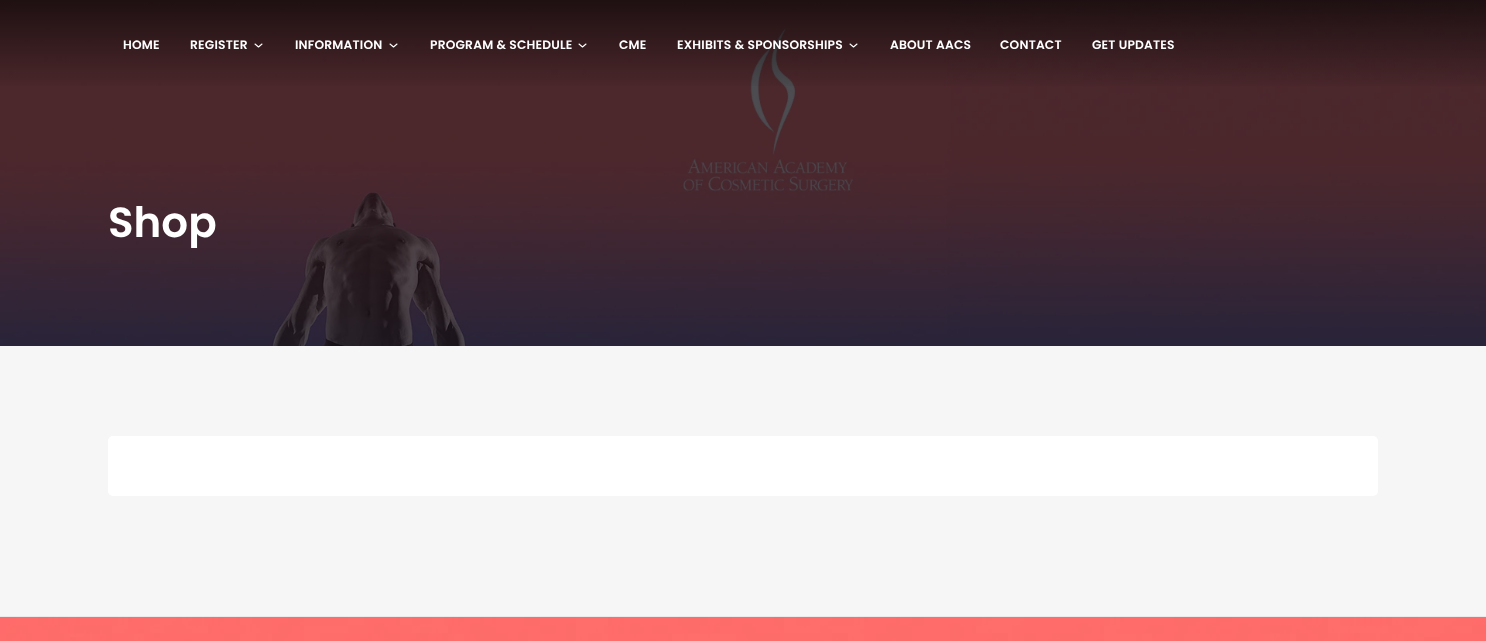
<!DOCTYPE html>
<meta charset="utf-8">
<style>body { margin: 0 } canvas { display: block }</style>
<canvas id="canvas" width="1486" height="641"></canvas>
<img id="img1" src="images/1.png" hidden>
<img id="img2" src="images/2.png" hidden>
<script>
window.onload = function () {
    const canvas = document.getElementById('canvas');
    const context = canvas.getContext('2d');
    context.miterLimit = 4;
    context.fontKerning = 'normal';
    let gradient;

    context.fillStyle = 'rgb(246, 246, 246)';
    context.fillRect(0, 0, 1486, 641);
    context.fillStyle = 'rgb(18, 18, 25)';
    context.fillRect(0, 0, 1486, 346);
    context.drawImage(document.getElementById('img1'), 0, 0, 1486, 346);
    gradient = context.createLinearGradient(743, 0, 743, 91);
    gradient.addColorStop(0, 'rgba(0, 0, 0, 0.6)');
    gradient.addColorStop(1, 'rgba(0, 0, 0, 0)');
    context.fillStyle = gradient;
    context.fillRect(0, 0, 1486, 86);
    context.beginPath();
    context.moveTo(255, 44);
    context.lineTo(258.5, 47);
    context.lineTo(262, 44);
    context.strokeStyle = 'rgb(255, 255, 255)';
    context.lineWidth = 1.1;
    context.lineCap = 'round';
    context.lineJoin = 'round';
    context.stroke();
    context.beginPath();
    context.moveTo(390, 44);
    context.lineTo(393.5, 47);
    context.lineTo(397, 44);
    context.stroke();
    context.beginPath();
    context.moveTo(579, 44);
    context.lineTo(582.5, 47);
    context.lineTo(586, 44);
    context.stroke();
    context.beginPath();
    context.moveTo(850, 44);
    context.lineTo(853.5, 47);
    context.lineTo(857, 44);
    context.stroke();
    context.fillStyle = 'rgb(255, 255, 255)';
    context.beginPath();
    context.roundRect(108, 436, 1270, 60, 5);
    context.fill();
    context.drawImage(document.getElementById('img2'), 0, 617, 1486, 24);
    context.fillStyle = 'rgb(234, 234, 234)';
    context.fillRect(0, 616, 1486, 1);
    context.letterSpacing = '0.2px';
    context.font = '600 12.25px Poppins';
    context.fillStyle = 'rgb(255, 255, 255)';
    context.fillText('HOME', 123, 49);
    context.fillText('REGISTER', 190, 49);
    context.fillText('INFORMATION', 295, 49);
    context.fillText('PROGRAM & SCHEDULE', 430, 49);
    context.fillText('CME', 619, 49);
    context.fillText('EXHIBITS & SPONSORSHIPS', 677, 49);
    context.fillText('ABOUT AACS', 890, 49);
    context.fillText('CONTACT', 1000, 49);
    context.fillText('GET UPDATES', 1092, 49);
    context.letterSpacing = '0px';
    context.font = '600 42px Poppins';
    context.fillText('Shop', 108, 237);
};
</script>
